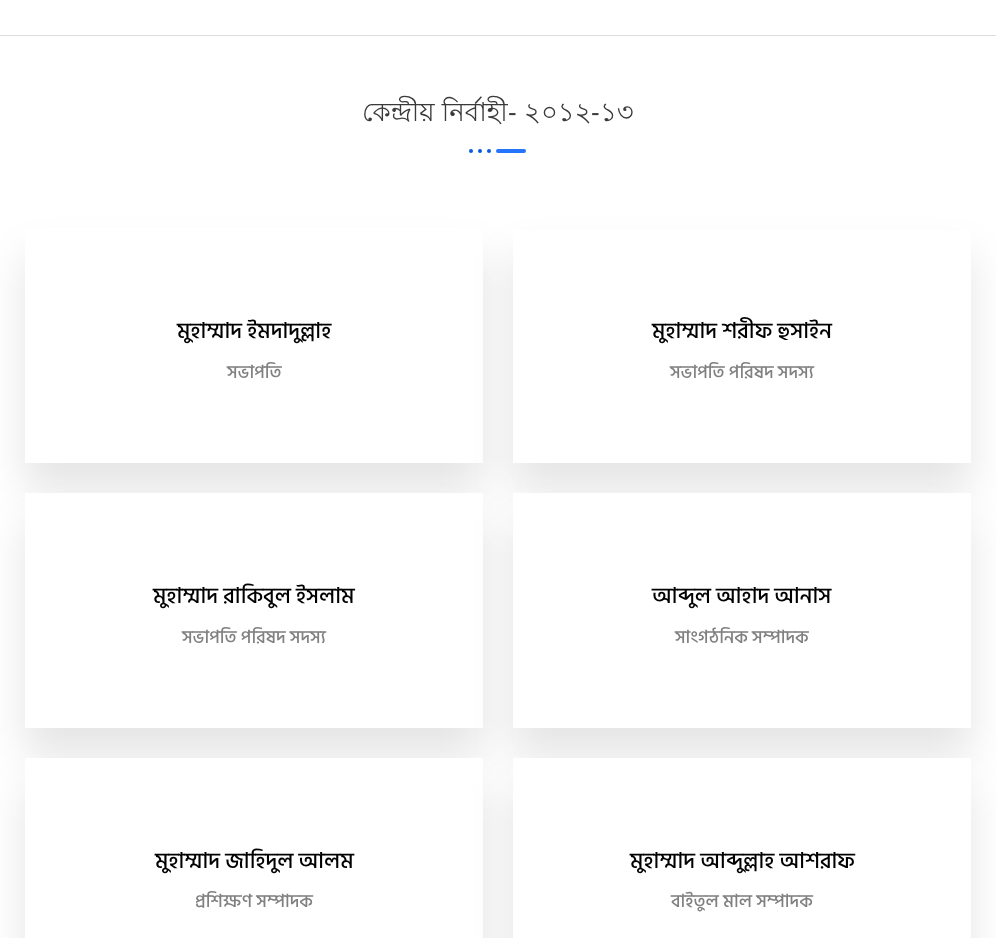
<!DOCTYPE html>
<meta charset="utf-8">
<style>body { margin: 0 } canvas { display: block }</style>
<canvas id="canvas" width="996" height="938"></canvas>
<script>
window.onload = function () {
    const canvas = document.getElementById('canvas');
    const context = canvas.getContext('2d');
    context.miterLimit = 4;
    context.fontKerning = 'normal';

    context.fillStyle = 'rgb(255, 255, 255)';
    context.fillRect(0, 0, 996, 938);
    context.fillStyle = 'rgb(221, 221, 221)';
    context.fillRect(0, 35, 996, 1);
    context.fillStyle = 'rgb(37, 117, 252)';
    context.beginPath();
    context.roundRect(496, 149, 30, 4, 2);
    context.fill();
    context.fillStyle = 'rgb(12, 90, 219)';
    context.beginPath();
    context.arc(489, 151, 2, 0, 2 * Math.PI);
    context.fill();
    context.beginPath();
    context.arc(480, 151, 2, 0, 2 * Math.PI);
    context.fill();
    context.beginPath();
    context.arc(471, 151, 2, 0, 2 * Math.PI);
    context.fill();
    context.save();
    context.beginPath();
    context.moveTo(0, 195);
    context.lineTo(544, 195);
    context.lineTo(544, 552);
    context.lineTo(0, 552);
    context.closePath();
    context.moveTo(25, 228);
    context.lineTo(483, 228);
    context.lineTo(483, 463);
    context.lineTo(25, 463);
    context.closePath();
    context.clip('evenodd');
    context.fillStyle = 'rgba(0, 0, 0, 0.1)';
    context.filter = 'blur(20px)';
    context.beginPath();
    context.rect(25, 256, 458, 235);
    context.fill();
    context.filter = 'none';
    context.restore();
    context.fillStyle = 'rgba(0, 0, 0, 0.1)';
    context.filter = 'blur(20px)';
    context.beginPath();
    context.rect(513, 256, 458, 235);
    context.fill();
    context.filter = 'none';
    context.fillStyle = 'rgb(255, 255, 255)';
    context.fillRect(513, 230, 458, 233);
    context.fillStyle = 'rgba(0, 0, 0, 0.1)';
    context.filter = 'blur(20px)';
    context.beginPath();
    context.rect(25, 521, 458, 235);
    context.fill();
    context.filter = 'none';
    context.fillStyle = 'rgb(255, 255, 255)';
    context.fillRect(25, 493, 458, 235);
    context.fillStyle = 'rgba(0, 0, 0, 0.1)';
    context.filter = 'blur(20px)';
    context.beginPath();
    context.rect(513, 521, 458, 235);
    context.fill();
    context.filter = 'none';
    context.fillStyle = 'rgb(255, 255, 255)';
    context.fillRect(513, 493, 458, 235);
    context.fillStyle = 'rgba(0, 0, 0, 0.1)';
    context.filter = 'blur(20px)';
    context.beginPath();
    context.rect(25, 786, 458, 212);
    context.fill();
    context.filter = 'none';
    context.fillStyle = 'rgb(255, 255, 255)';
    context.fillRect(25, 758, 458, 180);
    context.fillStyle = 'rgba(0, 0, 0, 0.1)';
    context.filter = 'blur(20px)';
    context.beginPath();
    context.rect(513, 786, 458, 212);
    context.fill();
    context.filter = 'none';
    context.fillStyle = 'rgb(255, 255, 255)';
    context.fillRect(513, 758, 458, 180);
    context.font = '26px Lohit Bengali';
    context.fillStyle = 'rgb(58, 58, 58)';
    context.fillText('কেন্দ্রীয় নির্বাহী', 362, 121);
    context.font = '26px Liberation Sans';
    context.fillText('-', 508, 121);
    context.font = '26px Lohit Bengali';
    context.fillText('২০১২', 524, 121);
    context.font = '26px Liberation Sans';
    context.fillText('-', 591, 121);
    context.font = '26px Lohit Bengali';
    context.fillText('১৩', 600, 121);
    context.font = '500 22px Hind Siliguri';
    context.fillStyle = 'rgb(0, 0, 0)';
    context.fillText('মুহাম্মাদ ইমদাদুল্লাহ', 177, 338);
    context.font = '500 18px Hind Siliguri';
    context.fillStyle = 'rgb(128, 128, 128)';
    context.fillText('সভাপতি', 227, 378);
    context.font = '500 22px Hind Siliguri';
    context.fillStyle = 'rgb(0, 0, 0)';
    context.fillText('মুহাম্মাদ শরীফ হুসাইন', 652, 338);
    context.font = '500 18px Hind Siliguri';
    context.fillStyle = 'rgb(128, 128, 128)';
    context.fillText('সভাপতি পরিষদ সদস্য', 670, 378);
    context.font = '500 22px Hind Siliguri';
    context.fillStyle = 'rgb(0, 0, 0)';
    context.fillText('মুহাম্মাদ রাকিবুল ইসলাম', 153, 603);
    context.font = '500 18px Hind Siliguri';
    context.fillStyle = 'rgb(128, 128, 128)';
    context.fillText('সভাপতি পরিষদ সদস্য', 182, 643);
    context.font = '500 22px Hind Siliguri';
    context.fillStyle = 'rgb(0, 0, 0)';
    context.fillText('আব্দুল আহাদ আনাস', 652, 603);
    context.font = '500 18px Hind Siliguri';
    context.fillStyle = 'rgb(128, 128, 128)';
    context.fillText('সাংগঠনিক সম্পাদক', 675, 643);
    context.font = '500 22px Hind Siliguri';
    context.fillStyle = 'rgb(0, 0, 0)';
    context.fillText('মুহাম্মাদ জাহিদুল আলম', 155, 868);
    context.font = '500 18px Hind Siliguri';
    context.fillStyle = 'rgb(128, 128, 128)';
    context.fillText('প্রশিক্ষণ সম্পাদক', 195, 907);
    context.font = '500 22px Hind Siliguri';
    context.fillStyle = 'rgb(0, 0, 0)';
    context.fillText('মুহাম্মাদ আব্দুল্লাহ আশরাফ', 630, 868);
    context.font = '500 18px Hind Siliguri';
    context.fillStyle = 'rgb(128, 128, 128)';
    context.fillText('বাইতুল মাল সম্পাদক', 671, 907);
};
</script>
